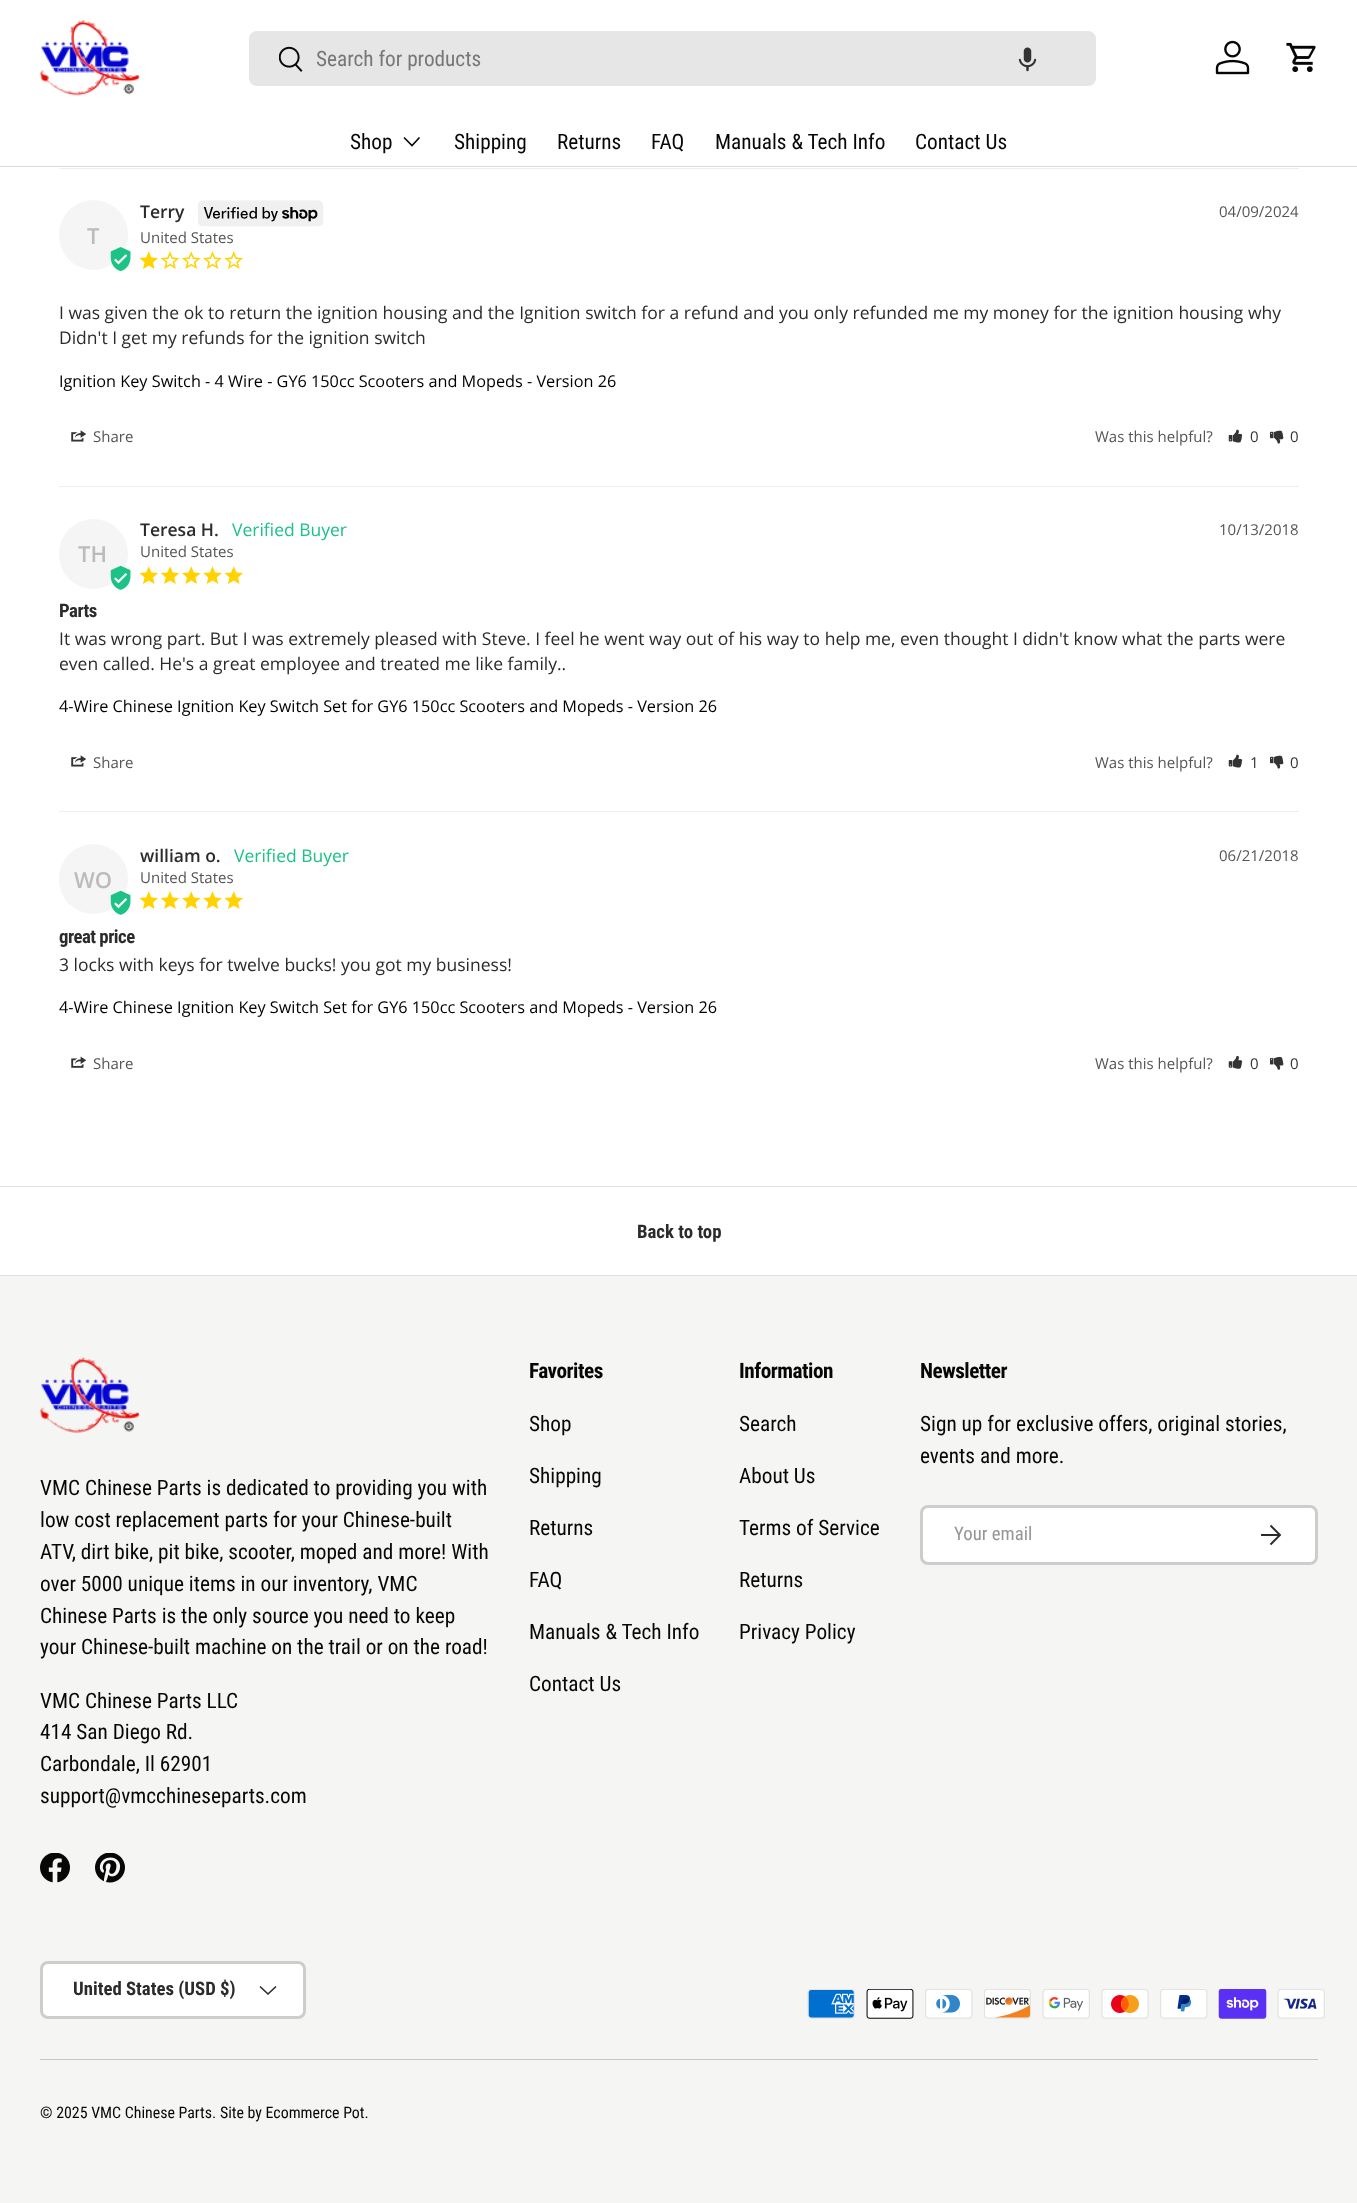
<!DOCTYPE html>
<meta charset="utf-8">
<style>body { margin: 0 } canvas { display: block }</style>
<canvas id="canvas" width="1357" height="2203"></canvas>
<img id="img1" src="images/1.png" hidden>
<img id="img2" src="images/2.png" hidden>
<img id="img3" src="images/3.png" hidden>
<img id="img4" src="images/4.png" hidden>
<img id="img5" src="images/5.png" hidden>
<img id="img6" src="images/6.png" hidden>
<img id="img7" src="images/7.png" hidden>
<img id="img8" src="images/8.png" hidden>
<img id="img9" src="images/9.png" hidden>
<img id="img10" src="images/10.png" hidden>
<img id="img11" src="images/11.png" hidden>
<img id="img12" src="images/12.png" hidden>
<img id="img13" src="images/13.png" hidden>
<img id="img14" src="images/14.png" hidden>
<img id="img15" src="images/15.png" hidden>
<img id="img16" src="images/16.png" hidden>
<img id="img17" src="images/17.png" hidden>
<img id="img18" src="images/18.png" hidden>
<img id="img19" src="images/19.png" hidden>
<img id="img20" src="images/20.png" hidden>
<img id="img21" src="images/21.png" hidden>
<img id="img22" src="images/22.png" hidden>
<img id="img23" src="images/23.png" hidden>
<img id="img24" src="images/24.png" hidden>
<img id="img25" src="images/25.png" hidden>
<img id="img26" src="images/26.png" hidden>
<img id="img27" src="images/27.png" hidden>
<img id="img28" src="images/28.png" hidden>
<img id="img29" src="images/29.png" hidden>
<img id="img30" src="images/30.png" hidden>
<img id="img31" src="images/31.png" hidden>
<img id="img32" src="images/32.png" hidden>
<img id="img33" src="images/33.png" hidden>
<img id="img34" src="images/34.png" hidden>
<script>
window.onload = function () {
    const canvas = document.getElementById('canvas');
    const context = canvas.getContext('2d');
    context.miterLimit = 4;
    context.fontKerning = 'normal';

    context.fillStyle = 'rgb(255, 255, 255)';
    context.fillRect(0, 0, 1357, 2203);
    context.fillStyle = 'rgb(218, 218, 218)';
    context.fillRect(0, 166, 1357, 1);
    context.drawImage(document.getElementById('img1'), 40, 20, 100, 76);
    context.fillStyle = 'rgb(230, 230, 230)';
    context.beginPath();
    context.roundRect(249, 31, 847, 55, 8);
    context.fill();
    context.drawImage(document.getElementById('img2'), 279, 46, 24, 26);
    context.drawImage(document.getElementById('img3'), 1018, 47, 19, 25);
    context.drawImage(document.getElementById('img4'), 1215, 40, 35, 35);
    context.drawImage(document.getElementById('img5'), 1286, 42, 30, 31);
    context.beginPath();
    context.moveTo(419.5, 137.5);
    context.lineTo(412, 145.5);
    context.lineTo(404, 137.5);
    context.strokeStyle = 'rgb(7, 7, 7)';
    context.lineWidth = 1.6;
    context.stroke();
    context.fillStyle = 'rgb(238, 238, 238)';
    context.fillRect(60, 168, 1239, 1);
    context.drawImage(document.getElementById('img6'), 198, 200, 126, 27);
    context.fillStyle = 'rgb(245, 245, 245)';
    context.beginPath();
    context.roundRect(59, 200, 69, 70, 34.5);
    context.fill();
    context.drawImage(document.getElementById('img7'), 110, 247, 21, 25);
    context.drawImage(document.getElementById('img8'), 139, 251, 19, 18);
    context.drawImage(document.getElementById('img9'), 160, 251, 20, 18);
    context.drawImage(document.getElementById('img10'), 182, 251, 19, 18);
    context.drawImage(document.getElementById('img11'), 203, 251, 19, 18);
    context.drawImage(document.getElementById('img12'), 224, 251, 19, 18);
    context.drawImage(document.getElementById('img13'), 71, 430, 16, 12);
    context.drawImage(document.getElementById('img14'), 1228, 429, 15, 14);
    context.drawImage(document.getElementById('img15'), 1270, 430, 14, 14);
    context.fillStyle = 'rgb(238, 238, 238)';
    context.fillRect(59, 486, 1240, 1);
    context.fillStyle = 'rgb(245, 245, 245)';
    context.beginPath();
    context.roundRect(59, 519, 69, 70, 34.5);
    context.fill();
    context.drawImage(document.getElementById('img16'), 110, 565, 21, 25);
    context.drawImage(document.getElementById('img8'), 139, 566, 19, 18);
    context.drawImage(document.getElementById('img17'), 160, 566, 20, 18);
    context.drawImage(document.getElementById('img18'), 182, 566, 19, 18);
    context.drawImage(document.getElementById('img19'), 203, 566, 19, 18);
    context.drawImage(document.getElementById('img8'), 224, 566, 19, 18);
    context.drawImage(document.getElementById('img13'), 71, 755, 16, 12);
    context.drawImage(document.getElementById('img14'), 1228, 754, 15, 14);
    context.drawImage(document.getElementById('img15'), 1270, 755, 14, 14);
    context.fillStyle = 'rgb(238, 238, 238)';
    context.fillRect(59, 811, 1240, 1);
    context.fillStyle = 'rgb(245, 245, 245)';
    context.beginPath();
    context.roundRect(59, 844, 69, 70, 34.5);
    context.fill();
    context.drawImage(document.getElementById('img16'), 110, 890, 21, 25);
    context.drawImage(document.getElementById('img8'), 139, 891, 19, 18);
    context.drawImage(document.getElementById('img17'), 160, 891, 20, 18);
    context.drawImage(document.getElementById('img18'), 182, 891, 19, 18);
    context.drawImage(document.getElementById('img19'), 203, 891, 19, 18);
    context.drawImage(document.getElementById('img8'), 224, 891, 19, 18);
    context.drawImage(document.getElementById('img20'), 71, 1056, 16, 12);
    context.drawImage(document.getElementById('img21'), 1228, 1055, 15, 14);
    context.drawImage(document.getElementById('img22'), 1270, 1056, 14, 14);
    context.fillStyle = 'rgb(223, 223, 223)';
    context.fillRect(0, 1186, 1357, 1);
    context.fillRect(0, 1275, 1357, 1);
    context.fillStyle = 'rgb(245, 245, 244)';
    context.fillRect(0, 1276, 1357, 927);
    context.fillStyle = 'rgb(255, 255, 255)';
    context.beginPath();
    context.roundRect(920, 1505, 398, 60, 8);
    context.fill();
    context.beginPath();
    context.roundRect(921.5, 1506.5, 395, 57, 6.5);
    context.strokeStyle = 'rgba(7, 7, 7, 0.2)';
    context.lineWidth = 3;
    context.stroke();
    context.beginPath();
    context.moveTo(1261, 1535);
    context.lineTo(1279, 1535);
    context.moveTo(1270.5, 1525.5);
    context.lineTo(1280, 1535);
    context.lineTo(1270.5, 1544.5);
    context.strokeStyle = 'rgb(42, 43, 42)';
    context.lineWidth = 1.9;
    context.stroke();
    context.drawImage(document.getElementById('img23'), 40, 1357, 100, 76);
    context.drawImage(document.getElementById('img24'), 40, 1853, 30, 30);
    context.drawImage(document.getElementById('img25'), 95, 1853, 30, 30);
    context.beginPath();
    context.roundRect(40, 1961, 266, 58, 8);
    context.fill();
    context.beginPath();
    context.roundRect(41.5, 1962.5, 263, 55, 6.5);
    context.strokeStyle = 'rgba(7, 7, 7, 0.2)';
    context.lineWidth = 3;
    context.stroke();
    context.beginPath();
    context.moveTo(276, 1986.5);
    context.lineTo(268, 1994);
    context.lineTo(260, 1986.5);
    context.strokeStyle = 'rgb(42, 43, 42)';
    context.lineWidth = 1.6;
    context.stroke();
    context.drawImage(document.getElementById('img26'), 807, 1989, 48, 30);
    context.drawImage(document.getElementById('img27'), 866, 1989, 48, 30);
    context.drawImage(document.getElementById('img28'), 925, 1989, 48, 30);
    context.drawImage(document.getElementById('img29'), 984, 1989, 47, 30);
    context.drawImage(document.getElementById('img30'), 1042, 1989, 48, 30);
    context.drawImage(document.getElementById('img31'), 1101, 1989, 48, 30);
    context.drawImage(document.getElementById('img32'), 1160, 1989, 48, 30);
    context.drawImage(document.getElementById('img33'), 1218, 1989, 49, 30);
    context.drawImage(document.getElementById('img34'), 1277, 1989, 48, 30);
    context.fillStyle = 'rgb(197, 197, 197)';
    context.fillRect(40, 2059, 1278, 1);
    context.font = '21.25px Roboto Condensed';
    context.fillStyle = 'rgb(119, 119, 119)';
    context.fillText('Search for products', 316, 66);
    context.fillStyle = 'rgb(7, 7, 7)';
    context.fillText('Shop', 350, 149);
    context.fillText('Shipping', 454, 149);
    context.fillText('Returns', 557, 149);
    context.fillText('FAQ', 651, 149);
    context.fillText('Manuals & Tech Info', 715, 149);
    context.fillText('Contact Us', 915, 149);
    context.font = '600 17.5px Open Sans';
    context.fillStyle = 'rgb(42, 43, 42)';
    context.fillText('Terry', 140, 218);
    context.font = '15px Open Sans';
    context.fillStyle = 'rgb(85, 85, 85)';
    context.fillText('04/09/2024', 1219, 217);
    context.font = '600 22px Open Sans';
    context.fillStyle = 'rgb(187, 187, 187)';
    context.fillText('T', 87, 244);
    context.font = '15px Open Sans';
    context.fillStyle = 'rgb(85, 85, 85)';
    context.fillText('United States', 140, 243);
    context.font = '17.5px Open Sans';
    context.fillStyle = 'rgb(42, 43, 42)';
    context.fillText('I was given the ok to return the ignition housing and the Ignition switch for a refund and you only refunded me my money for the ignition housing why', 59, 319);
    context.fillText('Didn\'t I get my refunds for the ignition switch', 59, 344);
    context.font = '16.25px Open Sans';
    context.fillStyle = 'rgb(0, 0, 0)';
    context.fillText('Ignition Key Switch - 4 Wire - GY6 150cc Scooters and Mopeds - Version 26', 59, 387);
    context.font = '15px Open Sans';
    context.fillStyle = 'rgb(85, 85, 85)';
    context.fillText('Share', 93, 442);
    context.fillText('Was this helpful?', 1095, 442);
    context.fillStyle = 'rgb(51, 51, 51)';
    context.fillText('0', 1250, 442);
    context.fillText('0', 1290, 442);
    context.font = '600 17.5px Open Sans';
    context.fillStyle = 'rgb(42, 43, 42)';
    context.fillText('Teresa H.', 140, 536);
    context.font = '17.5px Open Sans';
    context.fillStyle = 'rgb(28, 194, 134)';
    context.fillText('Verified Buyer', 232, 536);
    context.font = '15px Open Sans';
    context.fillStyle = 'rgb(85, 85, 85)';
    context.fillText('10/13/2018', 1219, 535);
    context.font = '600 22px Open Sans';
    context.fillStyle = 'rgb(187, 187, 187)';
    context.fillText('TH', 78, 562);
    context.font = '15px Open Sans';
    context.fillStyle = 'rgb(85, 85, 85)';
    context.fillText('United States', 140, 557);
    context.letterSpacing = '-0.5px';
    context.font = 'bold 18.75px Roboto Condensed';
    context.fillStyle = 'rgb(42, 43, 42)';
    context.fillText('Parts', 59, 617);
    context.letterSpacing = '0px';
    context.font = '17.5px Open Sans';
    context.fillText('It was wrong part. But I was extremely pleased with Steve. I feel he went way out of his way to help me, even thought I didn\'t know what the parts were', 59, 645);
    context.fillText('even called. He\'s a great employee and treated me like family..', 59, 670);
    context.font = '16.25px Open Sans';
    context.fillStyle = 'rgb(0, 0, 0)';
    context.fillText('4-Wire Chinese Ignition Key Switch Set for GY6 150cc Scooters and Mopeds - Version 26', 59, 712);
    context.font = '15px Open Sans';
    context.fillStyle = 'rgb(85, 85, 85)';
    context.fillText('Share', 93, 768);
    context.fillText('Was this helpful?', 1095, 768);
    context.fillStyle = 'rgb(51, 51, 51)';
    context.fillText('1', 1250, 768);
    context.fillText('0', 1290, 768);
    context.font = '600 17.5px Open Sans';
    context.fillStyle = 'rgb(42, 43, 42)';
    context.fillText('william o.', 140, 862);
    context.font = '17.5px Open Sans';
    context.fillStyle = 'rgb(28, 194, 134)';
    context.fillText('Verified Buyer', 234, 862);
    context.font = '15px Open Sans';
    context.fillStyle = 'rgb(85, 85, 85)';
    context.fillText('06/21/2018', 1219, 861);
    context.font = '600 22px Open Sans';
    context.fillStyle = 'rgb(187, 187, 187)';
    context.fillText('WO', 74, 888);
    context.font = '15px Open Sans';
    context.fillStyle = 'rgb(85, 85, 85)';
    context.fillText('United States', 140, 883);
    context.letterSpacing = '-0.5px';
    context.font = 'bold 18.75px Roboto Condensed';
    context.fillStyle = 'rgb(42, 43, 42)';
    context.fillText('great price', 59, 943);
    context.letterSpacing = '0px';
    context.font = '17.5px Open Sans';
    context.fillText('3 locks with keys for twelve bucks! you got my business!', 59, 971);
    context.font = '16.25px Open Sans';
    context.fillStyle = 'rgb(0, 0, 0)';
    context.fillText('4-Wire Chinese Ignition Key Switch Set for GY6 150cc Scooters and Mopeds - Version 26', 59, 1013);
    context.font = '15px Open Sans';
    context.fillStyle = 'rgb(85, 85, 85)';
    context.fillText('Share', 93, 1069);
    context.fillText('Was this helpful?', 1095, 1069);
    context.fillStyle = 'rgb(51, 51, 51)';
    context.fillText('0', 1250, 1069);
    context.fillText('0', 1290, 1069);
    context.font = 'bold 18.75px Roboto Condensed';
    context.fillStyle = 'rgb(42, 43, 42)';
    context.fillText('Back to top', 637, 1238);
    context.letterSpacing = '-0.5px';
    context.font = 'bold 21.25px Roboto Condensed';
    context.fillStyle = 'rgb(7, 7, 7)';
    context.fillText('Favorites', 529, 1378);
    context.letterSpacing = '0px';
    context.font = '21.25px Roboto Condensed';
    context.fillText('Shop', 529, 1431);
    context.fillText('Shipping', 529, 1483);
    context.fillText('Returns', 529, 1535);
    context.fillText('FAQ', 529, 1587);
    context.fillText('Manuals & Tech Info', 529, 1639);
    context.fillText('Contact Us', 529, 1691);
    context.letterSpacing = '-0.5px';
    context.font = 'bold 21.25px Roboto Condensed';
    context.fillText('Information', 739, 1378);
    context.letterSpacing = '0px';
    context.font = '21.25px Roboto Condensed';
    context.fillText('Search', 739, 1431);
    context.fillText('About Us', 739, 1483);
    context.fillText('Terms of Service', 739, 1535);
    context.fillText('Returns', 739, 1587);
    context.fillText('Privacy Policy', 739, 1639);
    context.letterSpacing = '-0.5px';
    context.font = 'bold 21.25px Roboto Condensed';
    context.fillText('Newsletter', 920, 1378);
    context.letterSpacing = '0px';
    context.font = '21.25px Roboto Condensed';
    context.fillText('Sign up for exclusive offers, original stories,', 920, 1431);
    context.fillText('events and more.', 920, 1463);
    context.font = '18.75px Roboto Condensed';
    context.fillStyle = 'rgb(149, 149, 149)';
    context.fillText('Your email', 954, 1540);
    context.font = '21.25px Roboto Condensed';
    context.fillStyle = 'rgb(7, 7, 7)';
    context.fillText('VMC Chinese Parts is dedicated to providing you with', 40, 1495);
    context.fillText('low cost replacement parts for your Chinese-built', 40, 1527);
    context.fillText('ATV, dirt bike, pit bike, scooter, moped and more! With', 40, 1559);
    context.fillText('over 5000 unique items in our inventory, VMC', 40, 1591);
    context.fillText('Chinese Parts is the only source you need to keep', 40, 1623);
    context.fillText('your Chinese-built machine on the trail or on the road!', 40, 1654);
    context.fillText('VMC Chinese Parts LLC', 40, 1708);
    context.fillText('414 San Diego Rd.', 40, 1739);
    context.fillText('Carbondale, Il 62901', 40, 1771);
    context.fillText('support@vmcchineseparts.com', 40, 1803);
    context.font = 'bold 18.75px Roboto Condensed';
    context.fillStyle = 'rgb(42, 43, 42)';
    context.fillText('United States (USD $)', 73, 1995);
    context.font = '15.9px Roboto Condensed';
    context.fillStyle = 'rgb(7, 7, 7)';
    context.fillText('© 2025 VMC Chinese Parts. Site by Ecommerce Pot.', 40, 2118);
};
</script>
